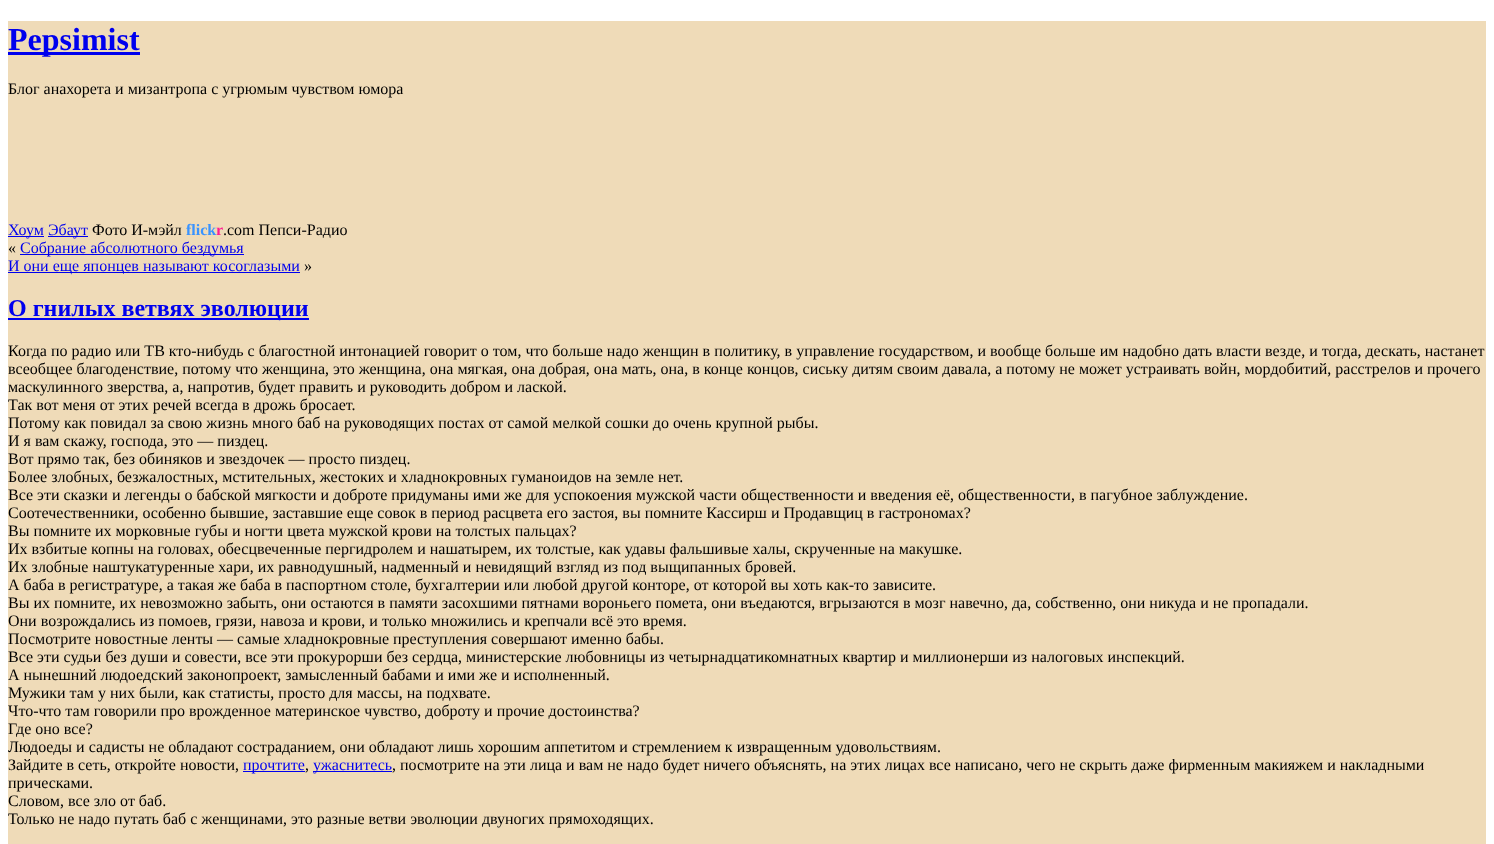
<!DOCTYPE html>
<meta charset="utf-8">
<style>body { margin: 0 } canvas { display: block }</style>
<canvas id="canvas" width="1494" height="844"></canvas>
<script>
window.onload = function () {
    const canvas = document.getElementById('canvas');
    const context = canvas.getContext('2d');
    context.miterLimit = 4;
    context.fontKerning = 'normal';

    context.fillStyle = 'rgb(255, 255, 255)';
    context.fillRect(0, 0, 1494, 844);
    context.fillStyle = 'rgb(239, 219, 184)';
    context.fillRect(8, 21, 1478, 823);
    context.fillStyle = 'rgb(0, 0, 238)';
    context.fillRect(8, 52, 132, 3);
    context.fillRect(8, 236, 36, 1);
    context.fillRect(48, 236, 40, 1);
    context.fillRect(20, 254, 224, 1);
    context.fillRect(8, 272, 292, 1);
    context.fillRect(8, 318, 301, 2);
    context.fillRect(243, 771, 62, 1);
    context.fillRect(313, 771, 79, 1);
    context.font = 'bold 32px Liberation Serif';
    context.fillText('Pepsimist', 8, 50);
    context.font = '16px Liberation Serif';
    context.fillStyle = 'rgb(0, 0, 0)';
    context.fillText('Блог анахорета и мизантропа с угрюмым чувством юмора', 8, 94);
    context.fillStyle = 'rgb(0, 0, 238)';
    context.fillText('Хоум', 8, 235);
    context.fillText('Эбаут', 48, 235);
    context.fillStyle = 'rgb(0, 0, 0)';
    context.fillText('Фото И-мэйл', 92, 235);
    context.font = 'bold 16px Liberation Serif';
    context.fillStyle = 'rgb(57, 147, 255)';
    context.fillText('flick', 186, 235);
    context.fillStyle = 'rgb(255, 28, 146)';
    context.fillText('r', 216, 235);
    context.font = '16px Liberation Serif';
    context.fillStyle = 'rgb(0, 0, 0)';
    context.fillText('.com Пепси-Радио', 223, 235);
    context.fillText('«', 8, 253);
    context.fillStyle = 'rgb(0, 0, 238)';
    context.fillText('Собрание абсолютного бездумья', 20, 253);
    context.fillText('И они еще японцев называют косоглазыми', 8, 271);
    context.fillStyle = 'rgb(0, 0, 0)';
    context.fillText('»', 304, 271);
    context.font = 'bold 24px Liberation Serif';
    context.fillStyle = 'rgb(0, 0, 238)';
    context.fillText('О гнилых ветвях эволюции', 8, 316);
    context.font = '16px Liberation Serif';
    context.fillStyle = 'rgb(0, 0, 0)';
    context.fillText('Когда по радио или ТВ кто-нибудь с благостной интонацией говорит о том, что больше надо женщин в политику, в управление государством, и вообще больше им надобно дать власти везде, и тогда, дескать, настанет', 8, 356);
    context.fillText('всеобщее благоденствие, потому что женщина, это женщина, она мягкая, она добрая, она мать, она, в конце концов, сиську дитям своим давала, а потому не может устраивать войн, мордобитий, расстрелов и прочего', 8, 374);
    context.fillText('маскулинного зверства, а, напротив, будет править и руководить добром и лаской.', 8, 392);
    context.fillText('Так вот меня от этих речей всегда в дрожь бросает.', 8, 410);
    context.fillText('Потому как повидал за свою жизнь много баб на руководящих постах от самой мелкой сошки до очень крупной рыбы.', 8, 428);
    context.fillText('И я вам скажу, господа, это — пиздец.', 8, 446);
    context.fillText('Вот прямо так, без обиняков и звездочек — просто пиздец.', 8, 464);
    context.fillText('Более злобных, безжалостных, мстительных, жестоких и хладнокровных гуманоидов на земле нет.', 8, 482);
    context.fillText('Все эти сказки и легенды о бабской мягкости и доброте придуманы ими же для успокоения мужской части общественности и введения её, общественности, в пагубное заблуждение.', 8, 500);
    context.fillText('Соотечественники, особенно бывшие, заставшие еще совок в период расцвета его застоя, вы помните Кассирш и Продавщиц в гастрономах?', 8, 518);
    context.fillText('Вы помните их морковные губы и ногти цвета мужской крови на толстых пальцах?', 8, 536);
    context.fillText('Их взбитые копны на головах, обесцвеченные пергидролем и нашатырем, их толстые, как удавы фальшивые халы, скрученные на макушке.', 8, 554);
    context.fillText('Их злобные наштукатуренные хари, их равнодушный, надменный и невидящий взгляд из под выщипанных бровей.', 8, 572);
    context.fillText('А баба в регистратуре, а такая же баба в паспортном столе, бухгалтерии или любой другой конторе, от которой вы хоть как-то зависите.', 8, 590);
    context.fillText('Вы их помните, их невозможно забыть, они остаются в памяти засохшими пятнами вороньего помета, они въедаются, вгрызаются в мозг навечно, да, собственно, они никуда и не пропадали.', 8, 608);
    context.fillText('Они возрождались из помоев, грязи, навоза и крови, и только множились и крепчали всё это время.', 8, 626);
    context.fillText('Посмотрите новостные ленты — самые хладнокровные преступления совершают именно бабы.', 8, 644);
    context.fillText('Все эти судьи без души и совести, все эти прокурорши без сердца, министерские любовницы из четырнадцатикомнатных квартир и миллионерши из налоговых инспекций.', 8, 662);
    context.fillText('А нынешний людоедский законопроект, замысленный бабами и ими же и исполненный.', 8, 680);
    context.fillText('Мужики там у них были, как статисты, просто для массы, на подхвате.', 8, 698);
    context.fillText('Что-что там говорили про врожденное материнское чувство, доброту и прочие достоинства?', 8, 716);
    context.fillText('Где оно все?', 8, 734);
    context.fillText('Людоеды и садисты не обладают состраданием, они обладают лишь хорошим аппетитом и стремлением к извращенным удовольствиям.', 8, 752);
    context.fillText('Зайдите в сеть, откройте новости,', 8, 770);
    context.fillStyle = 'rgb(0, 0, 238)';
    context.fillText('прочтите', 243, 770);
    context.fillStyle = 'rgb(0, 0, 0)';
    context.fillText(',', 305, 770);
    context.fillStyle = 'rgb(0, 0, 238)';
    context.fillText('ужаснитесь', 313, 770);
    context.fillStyle = 'rgb(0, 0, 0)';
    context.fillText(', посмотрите на эти лица и вам не надо будет ничего объяснять, на этих лицах все написано, чего не скрыть даже фирменным макияжем и накладными', 392, 770);
    context.fillText('прическами.', 8, 788);
    context.fillText('Словом, все зло от баб.', 8, 806);
    context.fillText('Только не надо путать баб с женщинами, это разные ветви эволюции двуногих прямоходящих.', 8, 824);
};
</script>
